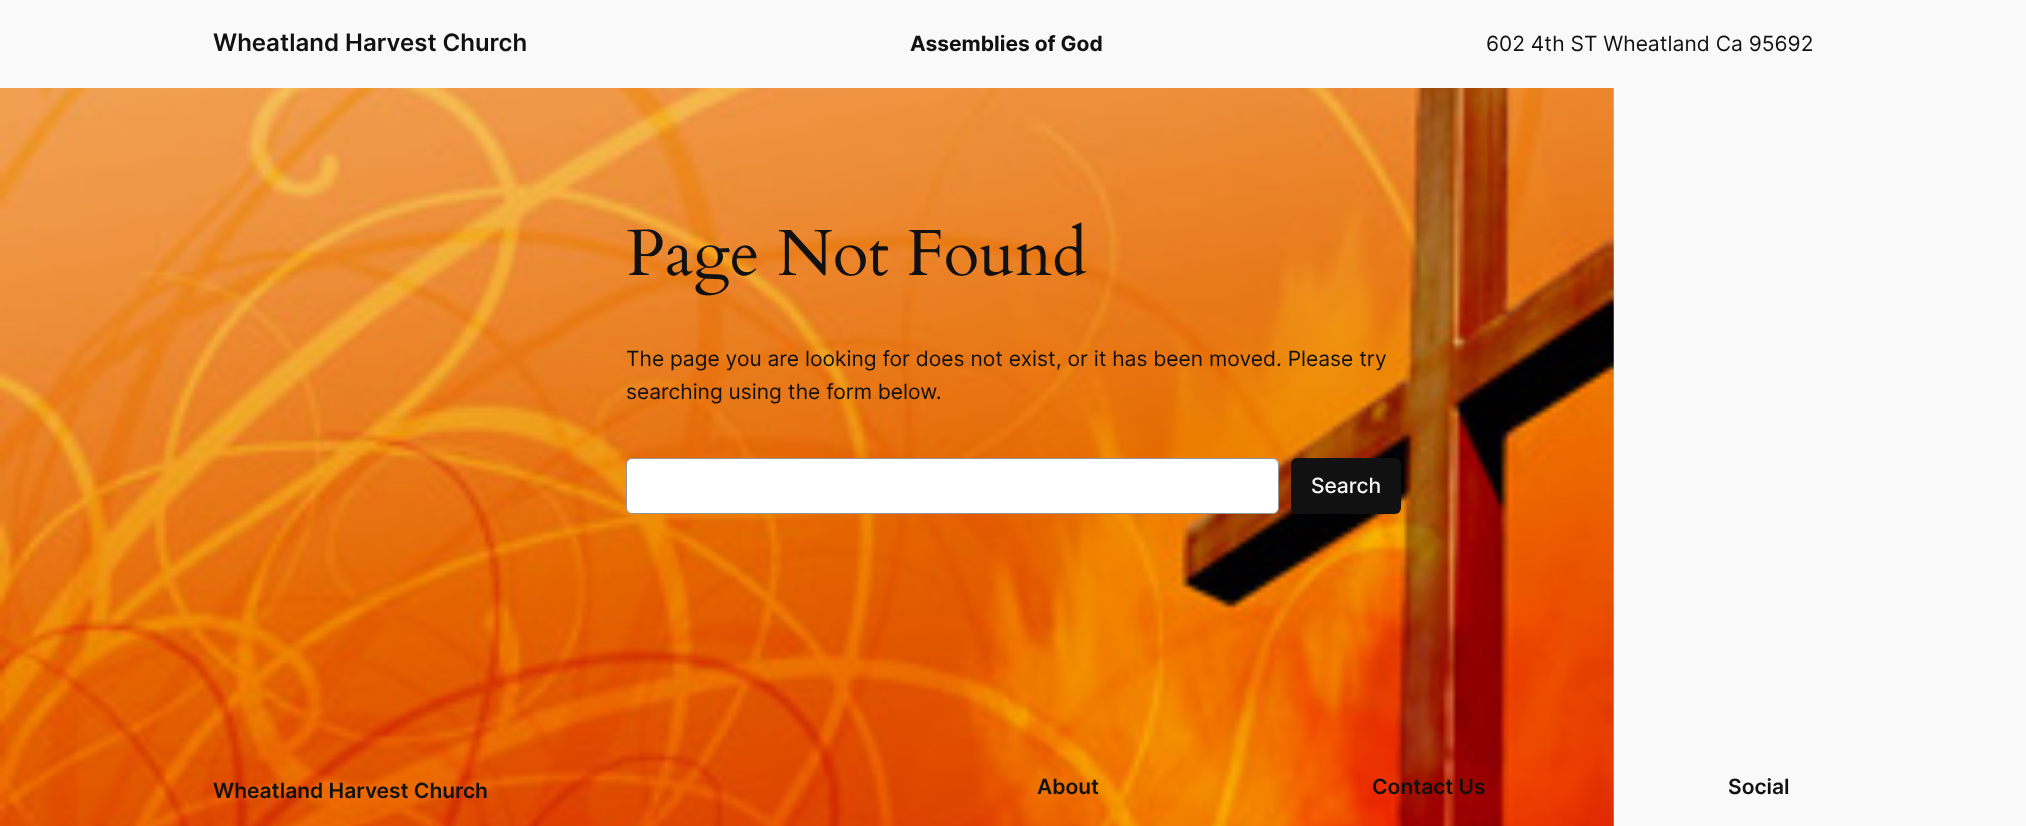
<!DOCTYPE html>
<meta charset="utf-8">
<style>body { margin: 0 } canvas { display: block }</style>
<canvas id="canvas" width="2026" height="826"></canvas>
<img id="img1" src="images/1.png" hidden>
<img id="img2" src="images/2.png" hidden>
<script>
window.onload = function () {
    const canvas = document.getElementById('canvas');
    const context = canvas.getContext('2d');
    context.miterLimit = 4;
    context.fontKerning = 'normal';

    context.fillStyle = 'rgb(249, 249, 249)';
    context.fillRect(0, 0, 2026, 826);
    context.drawImage(document.getElementById('img1'), 0, 88, 1614, 738);
    context.drawImage(document.getElementById('img2'), 627, 222, 460, 74);
    context.fillStyle = 'rgb(255, 255, 255)';
    context.beginPath();
    context.roundRect(626.5, 458.5, 652, 55, 5.5);
    context.fill();
    context.strokeStyle = 'rgb(148, 148, 148)';
    context.stroke();
    context.fillStyle = 'rgb(17, 17, 17)';
    context.beginPath();
    context.roundRect(1291, 458, 110, 56, 6);
    context.fill();
    context.font = '600 24px Inter';
    context.fillText('Wheatland Harvest Church', 213, 51);
    context.font = 'bold 21px Inter';
    context.fillText('Assemblies of God', 910, 51);
    context.font = '21px Inter';
    context.fillText('602 4th ST Wheatland Ca 95692', 1486, 51);
    context.fillText('The page you are looking for does not exist, or it has been moved. Please try', 626, 366);
    context.fillText('searching using the form below.', 626, 399);
    context.font = '500 21px Inter';
    context.fillStyle = 'rgb(249, 249, 249)';
    context.fillText('Search', 1311, 493);
    context.font = '600 21px Inter';
    context.fillStyle = 'rgb(17, 17, 17)';
    context.fillText('Wheatland Harvest Church', 213, 798);
    context.fillText('About', 1037, 794);
    context.fillText('Contact Us', 1372, 794);
    context.fillText('Social', 1728, 794);
};
</script>
